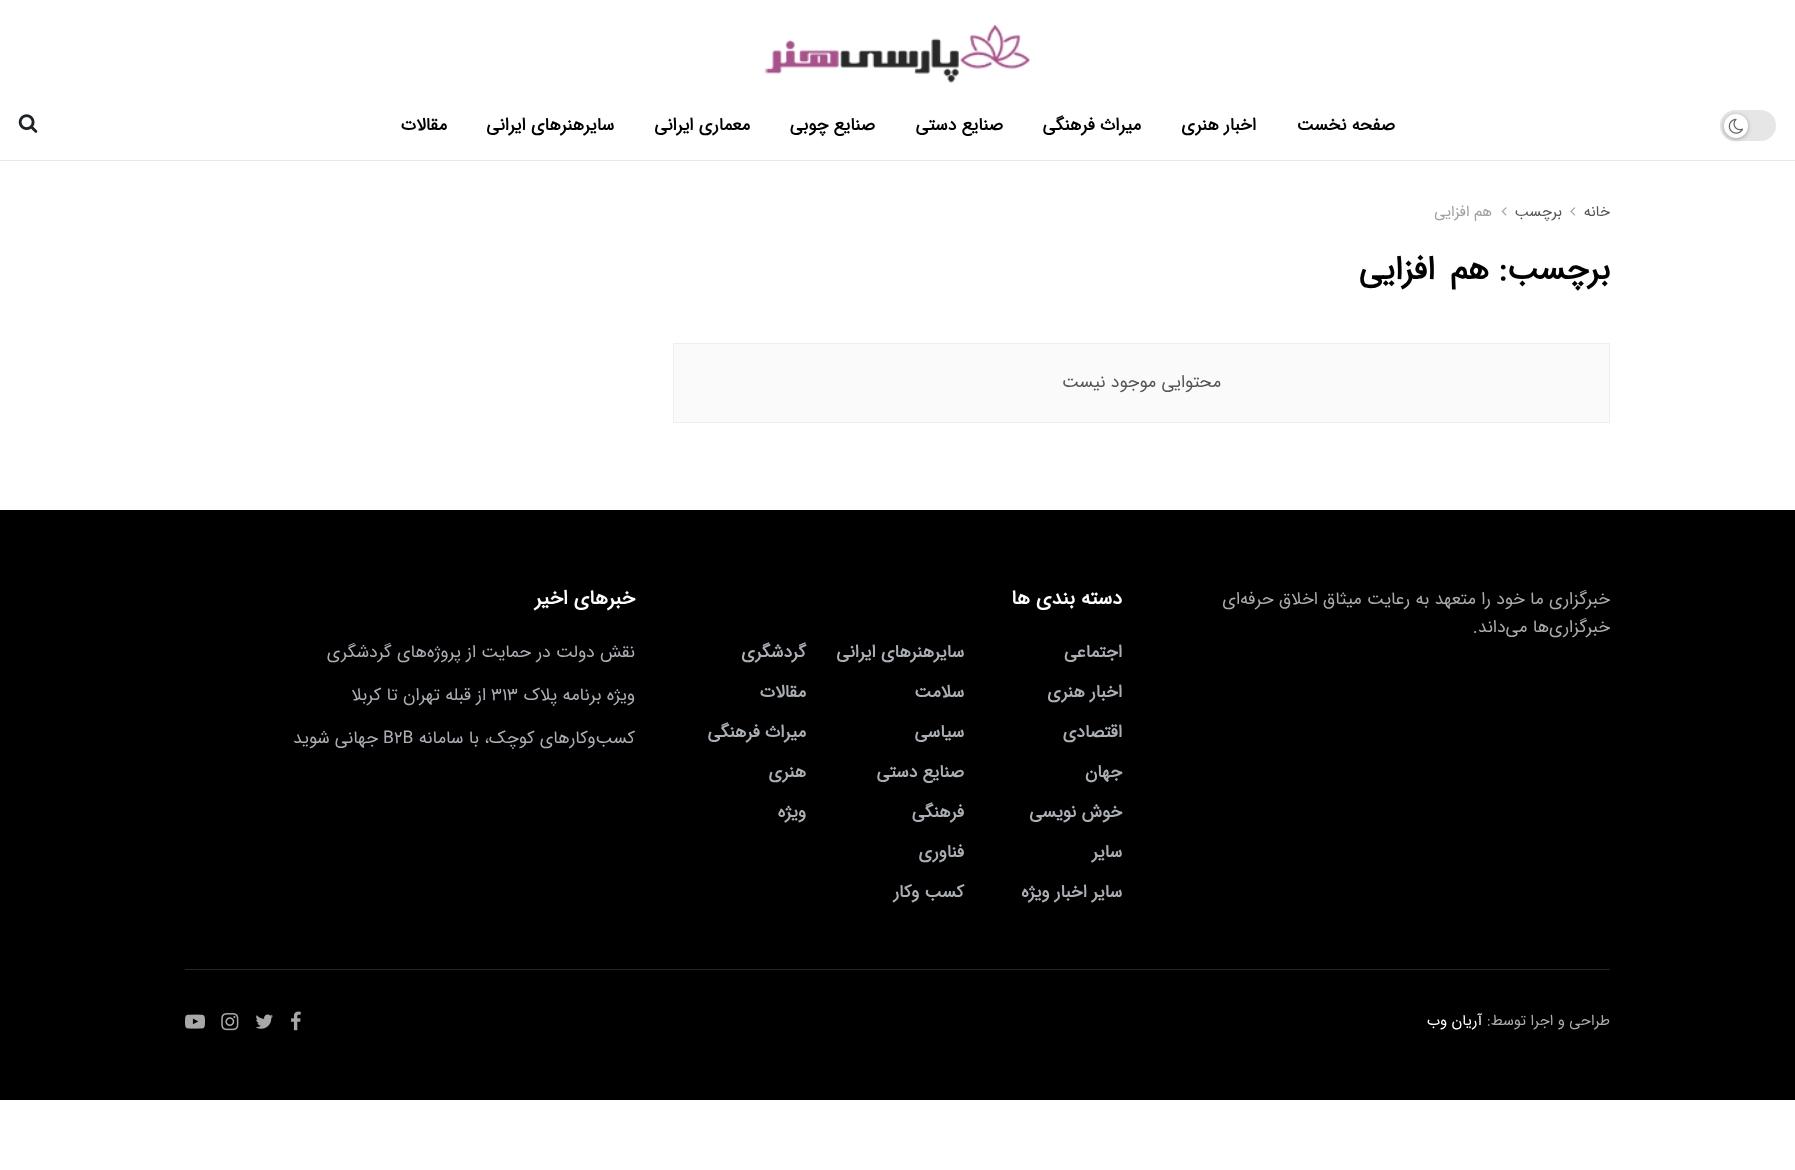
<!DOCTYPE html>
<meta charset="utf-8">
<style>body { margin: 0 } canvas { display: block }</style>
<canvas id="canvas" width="1795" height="1170"></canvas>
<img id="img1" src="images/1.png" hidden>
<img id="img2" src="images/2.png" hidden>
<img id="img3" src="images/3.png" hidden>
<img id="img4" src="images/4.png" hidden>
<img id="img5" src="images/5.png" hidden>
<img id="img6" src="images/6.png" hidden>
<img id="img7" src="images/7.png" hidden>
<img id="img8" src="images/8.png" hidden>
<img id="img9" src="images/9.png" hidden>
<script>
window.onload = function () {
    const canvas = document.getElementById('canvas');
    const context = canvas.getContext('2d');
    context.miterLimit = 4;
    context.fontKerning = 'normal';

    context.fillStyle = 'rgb(255, 255, 255)';
    context.fillRect(0, 0, 1795, 1170);
    context.drawImage(document.getElementById('img1'), 764, 24, 267, 59);
    context.fillStyle = 'rgb(232, 232, 232)';
    context.fillRect(0, 160, 1795, 1);
    context.fillStyle = 'rgb(230, 230, 230)';
    context.beginPath();
    context.roundRect(1720, 110, 56, 31, 15.5);
    context.fill();
    context.fillStyle = 'rgba(0, 0, 0, 0.3)';
    context.filter = 'blur(2px)';
    context.beginPath();
    context.roundRect(1724, 115, 24, 24, 12);
    context.fill();
    context.filter = 'none';
    context.fillStyle = 'rgb(255, 255, 255)';
    context.beginPath();
    context.arc(1736, 126, 12, 0, 2 * Math.PI);
    context.fill();
    context.drawImage(document.getElementById('img2'), 1728, 118, 16, 16);
    context.drawImage(document.getElementById('img3'), 18, 114, 20, 19);
    context.drawImage(document.getElementById('img4'), 1570, 207, 6, 9);
    context.drawImage(document.getElementById('img5'), 1501, 207, 6, 9);
    context.fillStyle = 'rgb(250, 250, 250)';
    context.beginPath();
    context.rect(673.5, 343.5, 936, 79);
    context.fill();
    context.strokeStyle = 'rgb(238, 238, 238)';
    context.stroke();
    context.fillStyle = 'rgb(0, 0, 0)';
    context.fillRect(0, 510, 1795, 590);
    context.fillStyle = 'rgb(38, 38, 38)';
    context.fillRect(185, 969, 1425, 1);
    context.drawImage(document.getElementById('img6'), 291, 1011, 10, 20);
    context.drawImage(document.getElementById('img7'), 255, 1014, 18, 15);
    context.drawImage(document.getElementById('img8'), 221, 1013, 18, 18);
    context.drawImage(document.getElementById('img9'), 185, 1014, 20, 15);
    context.direction = 'rtl';
    context.font = 'bold 17.5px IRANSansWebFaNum';
    context.fillStyle = 'rgb(0, 0, 0)';
    context.fillText('صفحه نخست', 1395, 130);
    context.fillText('اخبار هنری', 1256, 130);
    context.fillText('میراث فرهنگی', 1141, 130);
    context.fillText('صنایع دستی', 1003, 130);
    context.fillText('صنایع چوبی', 875, 130);
    context.fillText('معماری ایرانی', 750, 130);
    context.fillText('سایرهنرهای ایرانی', 614, 130);
    context.fillText('مقالات', 447, 130);
    context.font = '15px IRANSansWebFaNum';
    context.fillStyle = 'rgb(85, 85, 85)';
    context.fillText('خانه', 1610, 216);
    context.fillText('برچسب', 1562, 216);
    context.fillStyle = 'rgb(160, 160, 160)';
    context.fillText('هم افزایی', 1492, 216);
    context.letterSpacing = '-0.75px';
    context.font = 'bold 32.5px IRANSansWebFaNum';
    context.fillStyle = 'rgb(0, 0, 0)';
    context.fillText('برچسب:', 1610, 279);
    context.wordSpacing = '6px';
    context.fillText('هم افزایی', 1489, 279);
    context.letterSpacing = '0px';
    context.wordSpacing = '0px';
    context.font = '17.5px IRANSansWebFaNum';
    context.fillStyle = 'rgb(85, 85, 85)';
    context.fillText('محتوایی موجود نیست', 1221, 387);
    context.fillStyle = 'rgb(171, 171, 171)';
    context.fillText('خبرگزاری ما خود را متعهد به رعایت میثاق اخلاق حرفه‌ای', 1610, 604);
    context.fillText('خبرگزاری‌ها می‌داند.', 1610, 632);
    context.font = 'bold 20px IRANSansWebFaNum';
    context.fillStyle = 'rgb(255, 255, 255)';
    context.fillText('دسته بندی ها', 1122, 604);
    context.font = 'bold 17.5px IRANSansWebFaNum';
    context.fillStyle = 'rgb(169, 175, 179)';
    context.fillText('اجتماعی', 1122, 657);
    context.fillText('سایرهنرهای ایرانی', 964, 657);
    context.fillText('گردشگری', 806, 657);
    context.fillText('اخبار هنری', 1122, 697);
    context.fillText('سلامت', 964, 697);
    context.fillText('مقالات', 806, 697);
    context.fillText('اقتصادی', 1122, 737);
    context.fillText('سیاسی', 964, 737);
    context.fillText('میراث فرهنگی', 806, 737);
    context.fillText('جهان', 1122, 777);
    context.fillText('صنایع دستی', 964, 777);
    context.fillText('هنری', 806, 777);
    context.fillText('خوش نویسی', 1122, 817);
    context.fillText('فرهنگی', 964, 817);
    context.fillText('ویژه', 806, 817);
    context.fillText('سایر', 1122, 857);
    context.fillText('فناوری', 964, 857);
    context.fillText('سایر اخبار ویژه', 1122, 897);
    context.fillText('کسب وکار', 964, 897);
    context.font = 'bold 20px IRANSansWebFaNum';
    context.fillStyle = 'rgb(255, 255, 255)';
    context.fillText('خبرهای اخیر', 635, 604);
    context.font = '17.5px IRANSansWebFaNum';
    context.fillStyle = 'rgb(169, 175, 179)';
    context.fillText('نقش دولت در حمایت از پروژه‌های گردشگری', 635, 657);
    context.fillText('ویژه برنامه پلاک', 635, 700);
    context.direction = 'ltr';
    context.fillText('313', 491, 700);
    context.direction = 'rtl';
    context.fillText('از قبله تهران تا کربلا', 486, 700);
    context.fillText('کسب‌وکارهای کوچک، با سامانه', 635, 743);
    context.direction = 'ltr';
    context.fillText('B2B', 383, 743);
    context.direction = 'rtl';
    context.fillText('جهانی شوید', 378, 743);
    context.font = '15px IRANSansWebFaNum';
    context.fillStyle = 'rgb(171, 171, 171)';
    context.fillText('طراحی و اجرا توسط:', 1610, 1025);
    context.fillStyle = 'rgb(255, 255, 255)';
    context.fillText('آریان وب', 1482, 1025);
};
</script>
